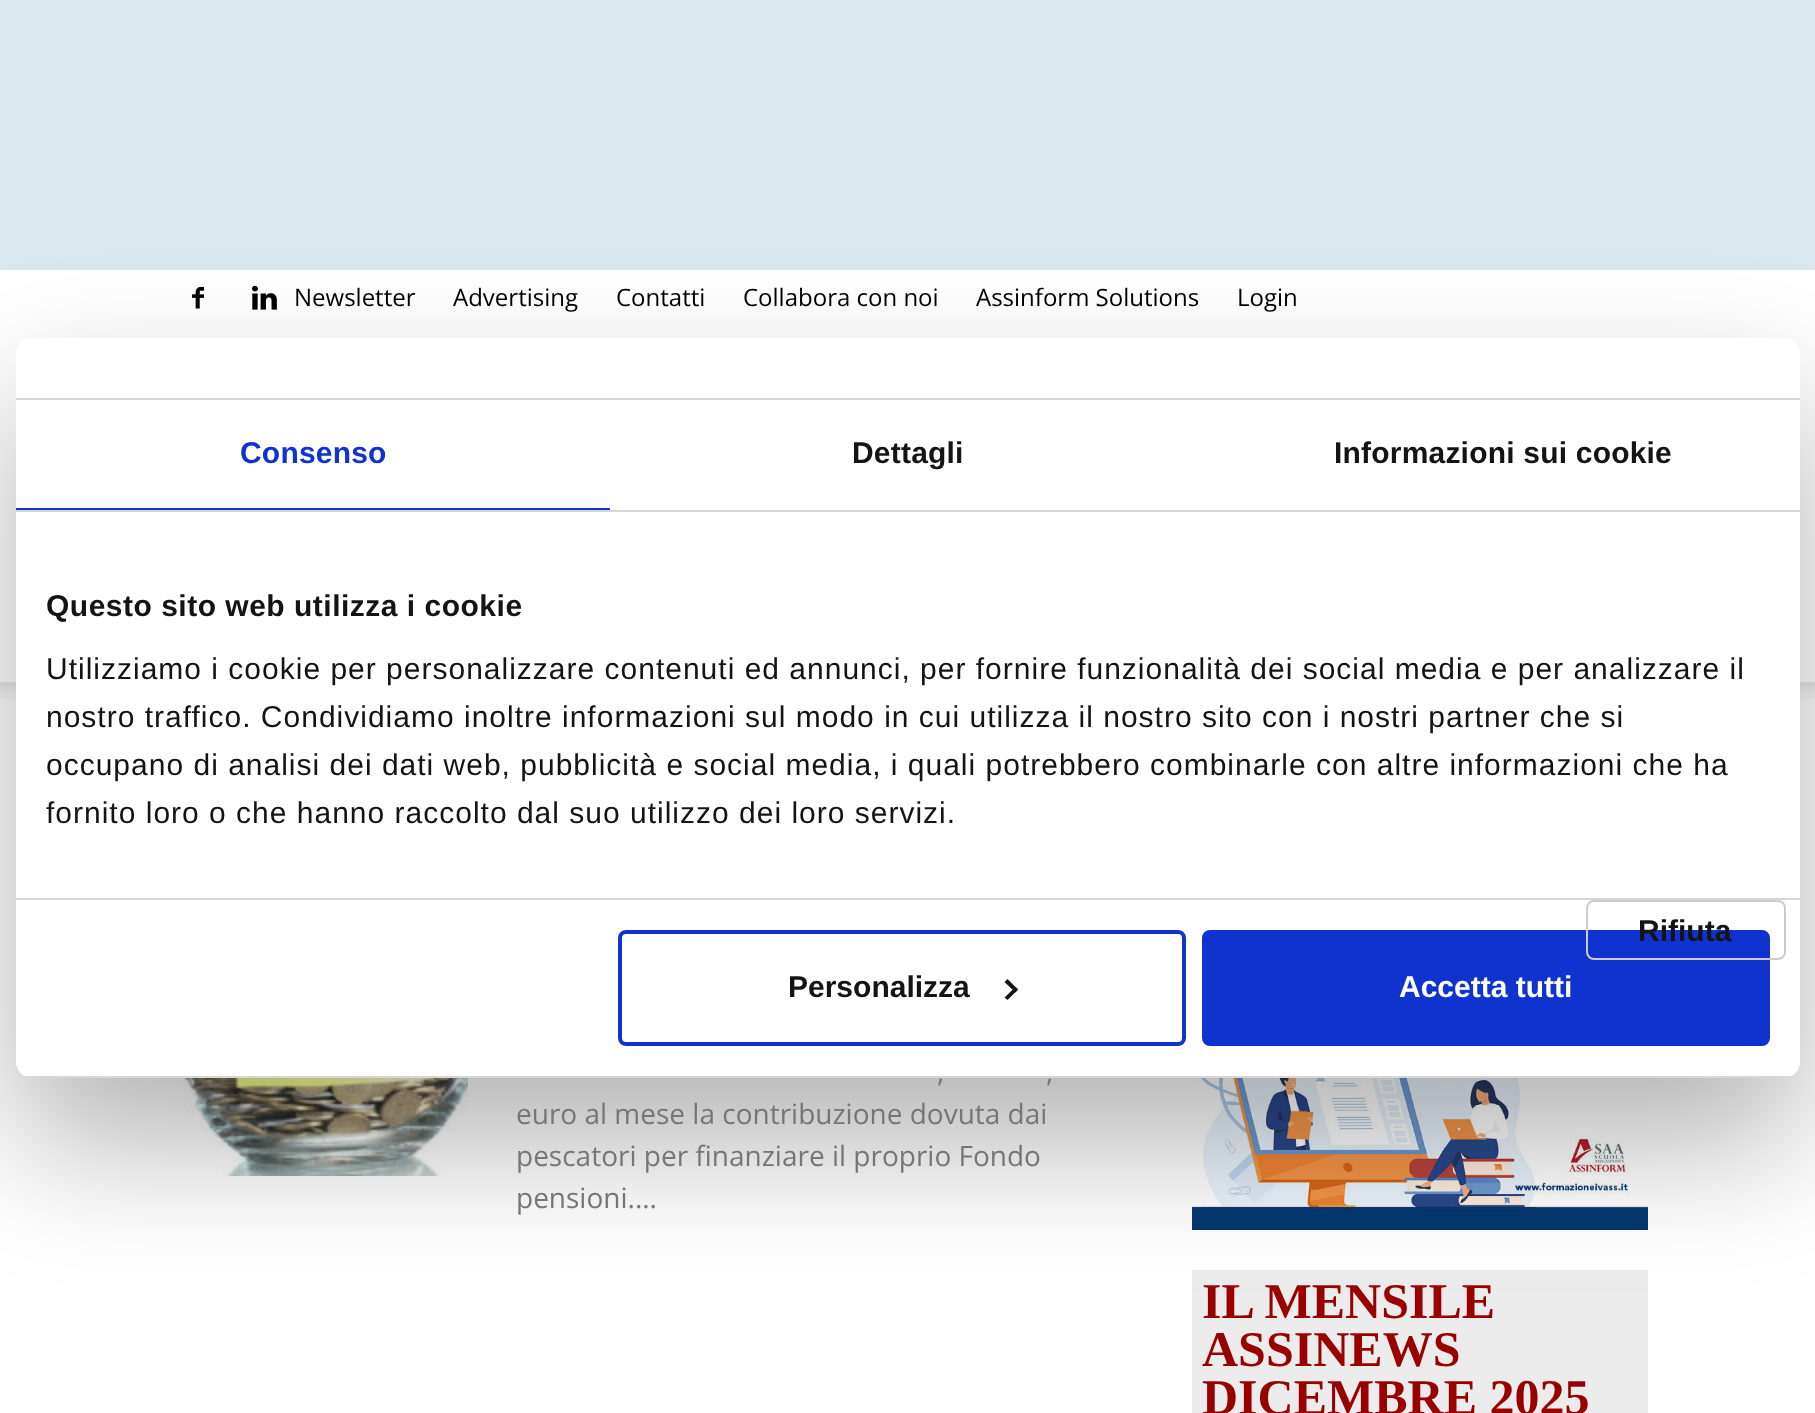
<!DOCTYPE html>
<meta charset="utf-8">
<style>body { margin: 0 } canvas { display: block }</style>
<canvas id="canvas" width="1815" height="1413"></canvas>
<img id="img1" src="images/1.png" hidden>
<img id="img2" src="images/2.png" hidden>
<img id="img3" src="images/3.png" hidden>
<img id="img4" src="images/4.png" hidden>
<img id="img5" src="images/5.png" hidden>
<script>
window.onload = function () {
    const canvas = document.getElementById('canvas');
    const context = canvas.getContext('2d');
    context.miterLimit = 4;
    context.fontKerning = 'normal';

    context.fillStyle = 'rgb(255, 255, 255)';
    context.fillRect(0, 0, 1815, 1413);
    context.fillStyle = 'rgb(218, 231, 239)';
    context.fillRect(0, 0, 1815, 270);
    context.drawImage(document.getElementById('img1'), 192, 286, 12, 23);
    context.drawImage(document.getElementById('img2'), 252, 285, 25, 25);
    context.drawImage(document.getElementById('img3'), 0, 682, 1815, 17);
    context.drawImage(document.getElementById('img4'), 168, 1078, 300, 98);
    context.drawImage(document.getElementById('img5'), 1192, 1078, 456, 152);
    context.fillStyle = 'rgb(236, 236, 236)';
    context.fillRect(1192, 1270, 456, 143);
    context.fillStyle = 'rgba(0, 0, 0, 0.3)';
    context.filter = 'blur(68px)';
    context.beginPath();
    context.roundRect(16, 402, 1784, 740, 16);
    context.fill();
    context.filter = 'none';
    context.fillStyle = 'rgb(255, 255, 255)';
    context.beginPath();
    context.roundRect(16, 338, 1784, 740, 16);
    context.fill();
    context.fillStyle = 'rgb(214, 214, 214)';
    context.fillRect(16, 398, 1784, 2);
    context.fillRect(16, 510, 1784, 2);
    context.fillStyle = 'rgb(16, 50, 207)';
    context.fillRect(16, 508, 594, 2);
    context.fillStyle = 'rgb(214, 214, 214)';
    context.fillRect(16, 898, 1784, 2);
    context.save();
    context.beginPath();
    context.roundRect(16, 338, 1784, 740, 16);
    context.clip();
    context.fillRect(16, 1076, 1784, 2);
    context.restore();
    context.fillStyle = 'rgb(16, 50, 207)';
    context.beginPath();
    context.roundRect(1204, 932, 564, 112, 6);
    context.fill();
    context.strokeStyle = 'rgb(16, 50, 207)';
    context.lineWidth = 4;
    context.stroke();
    context.beginPath();
    context.roundRect(1587, 901, 198, 58, 7);
    context.strokeStyle = 'rgb(204, 204, 204)';
    context.lineWidth = 2;
    context.stroke();
    context.beginPath();
    context.roundRect(620, 932, 564, 112, 6);
    context.strokeStyle = 'rgb(16, 50, 207)';
    context.lineWidth = 4;
    context.stroke();
    context.fillStyle = 'rgb(20, 20, 20)';
    context.beginPath();
    context.moveTo(1007.5, 979);
    context.lineTo(1018, 989.5);
    context.lineTo(1015.5, 992.5);
    context.lineTo(1004.5, 982);
    context.closePath();
    context.fill();
    context.beginPath();
    context.moveTo(1015.5, 987);
    context.lineTo(1018, 989.5);
    context.lineTo(1007.5, 1000);
    context.lineTo(1004.5, 997.5);
    context.closePath();
    context.fill();
    context.font = '24px Open Sans';
    context.fillStyle = 'rgb(0, 0, 0)';
    context.fillText('Newsletter', 294, 306);
    context.fillText('Advertising', 453, 306);
    context.fillText('Contatti', 616, 306);
    context.fillText('Collabora con noi', 743, 306);
    context.fillText('Assinform Solutions', 976, 306);
    context.fillText('Login', 1237, 306);
    context.font = '28px Open Sans';
    context.fillStyle = 'rgb(118, 118, 118)';
    context.fillText(',', 937, 1082);
    context.fillText(',', 1046, 1082);
    context.fillText('euro al mese la contribuzione dovuta dai', 516, 1124);
    context.fillText('pescatori per finanziare il proprio Fondo', 516, 1166);
    context.fillText('pensioni....', 516, 1208);
    context.font = 'bold 50px Liberation Serif';
    context.fillStyle = 'rgb(153, 0, 0)';
    context.fillText('IL MENSILE', 1202, 1318);
    context.fillText('ASSINEWS', 1202, 1366);
    context.fillText('DICEMBRE 2025', 1202, 1414);
    context.letterSpacing = '0.2px';
    context.font = 'bold 30px Liberation Sans';
    context.fillStyle = 'rgb(16, 50, 207)';
    context.fillText('Consenso', 240, 463);
    context.fillStyle = 'rgb(20, 20, 20)';
    context.fillText('Dettagli', 852, 463);
    context.fillText('Informazioni sui cookie', 1334, 463);
    context.letterSpacing = '0.5px';
    context.fillText('Questo sito web utilizza i cookie', 46, 616);
    context.letterSpacing = '1px';
    context.font = '30px Liberation Sans';
    context.fillText('Utilizziamo i cookie per personalizzare contenuti ed annunci, per fornire funzionalità dei social media e per analizzare il', 46, 679);
    context.fillText('nostro traffico. Condividiamo inoltre informazioni sul modo in cui utilizza il nostro sito con i nostri partner che si', 46, 727);
    context.fillText('occupano di analisi dei dati web, pubblicità e social media, i quali potrebbero combinarle con altre informazioni che ha', 46, 775);
    context.fillText('fornito loro o che hanno raccolto dal suo utilizzo dei loro servizi.', 46, 823);
    context.letterSpacing = '0px';
    context.font = 'bold 30px Liberation Sans';
    context.fillText('Rifiuta', 1638, 941);
    context.fillText('Personalizza', 788, 997);
    context.fillStyle = 'rgb(255, 255, 255)';
    context.fillText('Accetta tutti', 1399, 997);
};
</script>
